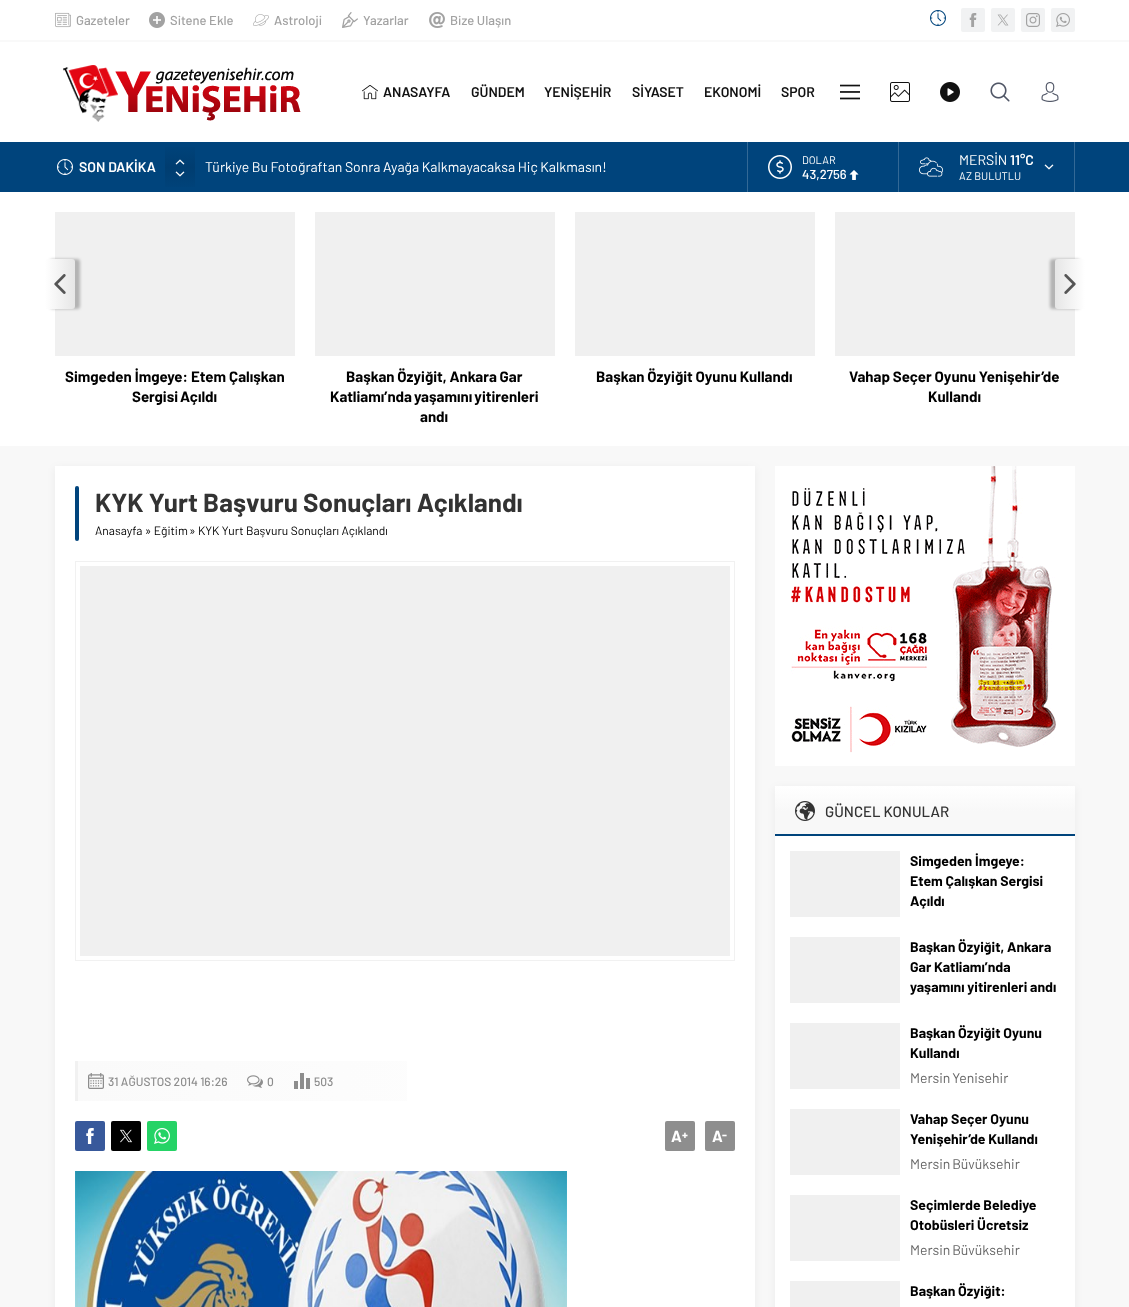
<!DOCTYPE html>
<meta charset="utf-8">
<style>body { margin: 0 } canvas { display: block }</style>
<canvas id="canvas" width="1129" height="1307"></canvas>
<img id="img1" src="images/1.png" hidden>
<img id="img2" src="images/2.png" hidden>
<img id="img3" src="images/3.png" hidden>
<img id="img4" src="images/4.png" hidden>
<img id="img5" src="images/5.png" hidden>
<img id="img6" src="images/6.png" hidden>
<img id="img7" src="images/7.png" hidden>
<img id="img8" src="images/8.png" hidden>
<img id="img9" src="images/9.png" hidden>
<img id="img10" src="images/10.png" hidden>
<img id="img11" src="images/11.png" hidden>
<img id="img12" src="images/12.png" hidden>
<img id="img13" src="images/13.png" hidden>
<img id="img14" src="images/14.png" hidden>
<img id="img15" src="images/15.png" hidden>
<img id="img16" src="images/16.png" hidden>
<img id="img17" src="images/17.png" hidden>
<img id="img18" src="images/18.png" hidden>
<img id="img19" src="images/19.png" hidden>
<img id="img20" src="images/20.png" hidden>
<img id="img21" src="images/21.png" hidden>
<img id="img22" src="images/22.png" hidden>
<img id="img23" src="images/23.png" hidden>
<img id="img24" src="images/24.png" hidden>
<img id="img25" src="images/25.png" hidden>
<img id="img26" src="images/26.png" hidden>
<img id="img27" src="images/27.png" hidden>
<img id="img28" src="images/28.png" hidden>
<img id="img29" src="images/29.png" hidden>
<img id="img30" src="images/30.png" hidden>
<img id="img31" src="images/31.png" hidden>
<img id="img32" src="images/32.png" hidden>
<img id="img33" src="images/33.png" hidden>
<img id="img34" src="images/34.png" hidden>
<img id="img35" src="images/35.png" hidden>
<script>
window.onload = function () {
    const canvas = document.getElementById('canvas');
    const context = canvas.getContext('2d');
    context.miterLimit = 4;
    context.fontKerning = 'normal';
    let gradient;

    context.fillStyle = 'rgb(248, 248, 248)';
    context.fillRect(0, 0, 1129, 1307);
    context.fillStyle = 'rgb(255, 255, 255)';
    context.fillRect(0, 0, 1129, 142);
    context.fillStyle = 'rgb(249, 249, 249)';
    context.fillRect(0, 40, 1129, 2);
    context.drawImage(document.getElementById('img1'), 55, 12, 16, 16);
    context.drawImage(document.getElementById('img2'), 149, 12, 16, 16);
    context.drawImage(document.getElementById('img3'), 253, 14, 16, 12);
    context.drawImage(document.getElementById('img4'), 342, 12, 16, 16);
    context.drawImage(document.getElementById('img5'), 429, 12, 16, 16);
    context.drawImage(document.getElementById('img6'), 930, 10, 16, 16);
    context.fillStyle = 'rgb(241, 242, 243)';
    context.beginPath();
    context.roundRect(961, 8, 24, 24, 2);
    context.fill();
    context.drawImage(document.getElementById('img7'), 969, 13, 8, 14);
    context.beginPath();
    context.roundRect(991, 8, 24, 24, 2);
    context.fill();
    context.drawImage(document.getElementById('img8'), 997, 14, 12, 12);
    context.beginPath();
    context.roundRect(1021, 8, 24, 24, 2);
    context.fill();
    context.drawImage(document.getElementById('img9'), 1026, 13, 14, 14);
    context.beginPath();
    context.roundRect(1051, 8, 24, 24, 2);
    context.fill();
    context.drawImage(document.getElementById('img10'), 1056, 13, 14, 14);
    context.drawImage(document.getElementById('img11'), 63, 65, 238, 57);
    context.drawImage(document.getElementById('img12'), 362, 85, 16, 15);
    context.drawImage(document.getElementById('img13'), 840, 84, 20, 16);
    context.drawImage(document.getElementById('img14'), 890, 82, 20, 20);
    context.drawImage(document.getElementById('img15'), 940, 82, 20, 20);
    context.drawImage(document.getElementById('img16'), 990, 82, 20, 20);
    context.drawImage(document.getElementById('img17'), 1041, 82, 18, 20);
    context.fillStyle = 'rgb(0, 68, 124)';
    context.fillRect(0, 142, 1129, 50);
    context.drawImage(document.getElementById('img18'), 57, 159, 16, 16);
    gradient = context.createLinearGradient(180, 142, 180, 192);
    gradient.addColorStop(0, 'rgb(0, 68, 124)');
    gradient.addColorStop(0.5, 'rgb(0, 61, 112)');
    gradient.addColorStop(1, 'rgb(0, 68, 124)');
    context.fillStyle = gradient;
    context.fillRect(165, 147, 30, 40);
    context.drawImage(document.getElementById('img19'), 175, 159, 10, 6);
    context.drawImage(document.getElementById('img20'), 175, 171, 10, 6);
    context.fillStyle = 'rgb(51, 105, 150)';
    context.fillRect(747, 142, 1, 50);
    context.fillRect(898, 142, 1, 50);
    context.drawImage(document.getElementById('img21'), 768, 155, 24, 24);
    context.drawImage(document.getElementById('img22'), 849, 170, 10, 10);
    context.fillRect(1074, 142, 1, 50);
    context.drawImage(document.getElementById('img23'), 919, 157, 24, 20);
    context.drawImage(document.getElementById('img24'), 1044, 164, 10, 6);
    context.fillStyle = 'rgb(255, 255, 255)';
    context.fillRect(0, 192, 1129, 254);
    context.fillStyle = 'rgb(240, 240, 240)';
    context.fillRect(55, 212, 240, 144);
    context.fillStyle = 'rgba(0, 0, 0, 0.25)';
    context.filter = 'blur(1.5px)';
    context.beginPath();
    context.roundRect(50, 259, 30, 50, 3);
    context.fill();
    context.filter = 'none';
    gradient = context.createLinearGradient(45, 284, 75, 284);
    gradient.addColorStop(0, 'rgb(255, 255, 255)');
    gradient.addColorStop(1, 'rgb(230, 230, 230)');
    context.fillStyle = gradient;
    context.beginPath();
    context.roundRect(45, 259, 30, 50, [0, 3, 3, 0]);
    context.fill();
    context.drawImage(document.getElementById('img25'), 54, 274, 12, 20);
    context.fillStyle = 'rgb(240, 240, 240)';
    context.fillRect(835, 212, 240, 144);
    context.fillStyle = 'rgba(0, 0, 0, 0.25)';
    context.filter = 'blur(1.5px)';
    context.beginPath();
    context.roundRect(1050, 259, 30, 50, 3);
    context.fill();
    context.filter = 'none';
    gradient = context.createLinearGradient(1055, 284, 1085, 284);
    gradient.addColorStop(0, 'rgb(230, 230, 230)');
    gradient.addColorStop(1, 'rgb(255, 255, 255)');
    context.fillStyle = gradient;
    context.beginPath();
    context.roundRect(1055, 259, 30, 50, [3, 0, 0, 3]);
    context.fill();
    context.drawImage(document.getElementById('img26'), 1064, 274, 12, 20);
    context.fillStyle = 'rgb(240, 240, 240)';
    context.fillRect(315, 212, 240, 144);
    context.fillRect(575, 212, 240, 144);
    context.fillStyle = 'rgba(0, 0, 0, 0.05)';
    context.filter = 'blur(4px)';
    context.beginPath();
    context.rect(55, 468, 700, 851);
    context.fill();
    context.filter = 'none';
    context.fillStyle = 'rgb(255, 255, 255)';
    context.fillRect(55, 466, 700, 841);
    context.fillStyle = 'rgb(0, 68, 124)';
    context.beginPath();
    context.roundRect(75, 486, 4, 55, 2);
    context.fill();
    context.strokeStyle = 'rgb(241, 241, 241)';
    context.strokeRect(75.5, 561.5, 659, 399);
    context.fillStyle = 'rgb(240, 240, 240)';
    context.fillRect(80, 566, 650, 390);
    gradient = context.createLinearGradient(78, 1081, 735, 1081);
    gradient.addColorStop(0, 'rgb(250, 250, 250)');
    gradient.addColorStop(1, 'rgb(255, 255, 255)');
    context.fillStyle = gradient;
    context.fillRect(78, 1061, 329, 40);
    context.fillStyle = 'rgb(241, 241, 241)';
    context.fillRect(75, 1061, 3, 40);
    context.drawImage(document.getElementById('img27'), 88, 1073, 16, 16);
    context.drawImage(document.getElementById('img28'), 247, 1075, 16, 13);
    context.drawImage(document.getElementById('img29'), 294, 1073, 16, 16);
    context.fillStyle = 'rgb(56, 89, 155)';
    context.beginPath();
    context.roundRect(75, 1121, 30, 30, 2);
    context.fill();
    context.drawImage(document.getElementById('img30'), 86, 1128, 8, 16);
    context.fillStyle = 'rgb(0, 0, 0)';
    context.beginPath();
    context.roundRect(111, 1121, 30, 30, 2);
    context.fill();
    context.drawImage(document.getElementById('img31'), 120, 1129, 12, 14);
    context.fillStyle = 'rgb(37, 211, 102)';
    context.beginPath();
    context.roundRect(147, 1121, 30, 30, 2);
    context.fill();
    context.drawImage(document.getElementById('img32'), 154, 1128, 16, 16);
    context.fillStyle = 'rgb(142, 142, 142)';
    context.beginPath();
    context.roundRect(665, 1121, 30, 30, 2);
    context.fill();
    context.beginPath();
    context.roundRect(705, 1121, 30, 30, 2);
    context.fill();
    context.drawImage(document.getElementById('img33'), 75, 1171, 492, 136);
    context.drawImage(document.getElementById('img34'), 775, 466, 300, 300);
    context.fillStyle = 'rgba(0, 0, 0, 0.05)';
    context.filter = 'blur(4px)';
    context.beginPath();
    context.rect(775, 788, 300, 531);
    context.fill();
    context.filter = 'none';
    context.fillStyle = 'rgb(255, 255, 255)';
    context.fillRect(775, 836, 300, 471);
    gradient = context.createLinearGradient(925, 786, 925, 836);
    gradient.addColorStop(0, 'rgb(255, 255, 255)');
    gradient.addColorStop(0.5, 'rgb(248, 248, 248)');
    context.fillStyle = gradient;
    context.fillRect(775, 786, 300, 48);
    context.drawImage(document.getElementById('img35'), 795, 801, 20, 20);
    context.fillStyle = 'rgb(0, 68, 124)';
    context.fillRect(775, 834, 300, 2);
    context.fillStyle = 'rgb(240, 240, 240)';
    context.fillRect(790, 851, 110, 66);
    context.fillRect(790, 937, 110, 66);
    context.fillRect(790, 1023, 110, 66);
    context.fillRect(790, 1109, 110, 66);
    context.fillRect(790, 1195, 110, 66);
    context.fillRect(790, 1281, 110, 26);
    context.font = '500 13px Barlow';
    context.fillStyle = 'rgb(162, 162, 162)';
    context.fillText('Gazeteler', 76, 25);
    context.fillText('Sitene Ekle', 170, 25);
    context.fillText('Astroloji', 274, 25);
    context.fillText('Yazarlar', 363, 25);
    context.fillText('Bize Ulaşın', 450, 25);
    context.font = '600 14px Barlow';
    context.fillStyle = 'rgb(17, 17, 17)';
    context.fillText('ANASAYFA', 383, 97);
    context.fillText('GÜNDEM', 471, 97);
    context.fillText('YENİŞEHİR', 544, 97);
    context.fillText('SİYASET', 632, 97);
    context.fillText('EKONOMİ', 704, 97);
    context.fillText('SPOR', 781, 97);
    context.fillStyle = 'rgb(255, 255, 255)';
    context.fillText('SON DAKİKA', 79, 172);
    context.wordSpacing = '-0.25px';
    context.font = '14px Barlow';
    context.fillText('Türkiye Bu Fotoğraftan Sonra Ayağa Kalkmayacaksa Hiç Kalkmasın!', 205, 172);
    context.wordSpacing = '0px';
    context.font = '11px Barlow';
    context.fillText('DOLAR', 802, 164);
    context.font = '500 13px Barlow';
    context.fillText('43,2756', 802, 179);
    context.font = '14px Barlow';
    context.fillText('MERSİN', 959, 165);
    context.font = '600 14px Barlow';
    context.fillText('11°C', 1010, 165);
    context.font = '11px Barlow';
    context.fillText('AZ BULUTLU', 959, 180);
    context.font = 'bold 15px Barlow';
    context.fillStyle = 'rgb(0, 0, 0)';
    context.fillText('Simgeden İmgeye: Etem Çalışkan', 65, 382);
    context.wordSpacing = '-1px';
    context.fillText('Sergisi Açıldı', 132, 402);
    context.wordSpacing = '-0.25px';
    context.fillText('Başkan Özyiğit, Ankara Gar', 346, 382);
    context.wordSpacing = '-1px';
    context.fillText('Katliamı’nda yaşamını yitirenleri', 330, 402);
    context.wordSpacing = '0px';
    context.fillText('andı', 420, 422);
    context.wordSpacing = '-0.25px';
    context.fillText('Başkan Özyiğit Oyunu Kullandı', 596, 382);
    context.fillText('Vahap Seçer Oyunu Yenişehir’de', 849, 382);
    context.wordSpacing = '0px';
    context.fillText('Kullandı', 928, 402);
    context.font = 'bold 26px Barlow';
    context.fillStyle = 'rgb(51, 51, 51)';
    context.fillText('KYK Yurt Başvuru Sonuçları Açıklandı', 95, 512);
    context.font = '12px Barlow';
    context.fillStyle = 'rgb(0, 0, 0)';
    context.fillText('Anasayfa » Eğitim', 95, 535);
    context.fillText('» KYK Yurt Başvuru Sonuçları Açıklandı', 189, 535);
    context.font = '500 12px Barlow';
    context.fillStyle = 'rgb(141, 141, 141)';
    context.fillText('31 AĞUSTOS 2014 16:26', 108, 1086);
    context.fillText('0', 267, 1086);
    context.fillText('503', 314, 1086);
    context.font = 'bold 16px Barlow';
    context.fillStyle = 'rgb(255, 255, 255)';
    context.fillText('A', 671, 1142);
    context.font = 'bold 12px Barlow';
    context.fillText('+', 682, 1139);
    context.font = 'bold 16px Barlow';
    context.fillText('A', 712, 1142);
    context.font = 'bold 12px Barlow';
    context.fillText('-', 722, 1139);
    context.font = '500 15px Barlow';
    context.fillStyle = 'rgb(51, 51, 51)';
    context.fillText('GÜNCEL KONULAR', 825, 817);
    context.font = 'bold 14px Barlow';
    context.fillStyle = 'rgb(0, 0, 0)';
    context.fillText('Simgeden İmgeye:', 910, 866);
    context.fillText('Etem Çalışkan Sergisi', 910, 886);
    context.fillText('Açıldı', 910, 906);
    context.fillText('Başkan Özyiğit, Ankara', 910, 952);
    context.fillText('Gar Katliamı’nda', 910, 972);
    context.fillText('yaşamını yitirenleri andı', 910, 992);
    context.fillText('Başkan Özyiğit Oyunu', 910, 1038);
    context.fillText('Kullandı', 910, 1058);
    context.save();
    context.beginPath();
    context.rect(910, 1023, 150, 60);
    context.clip();
    context.wordSpacing = '-1px';
    context.font = '14px Barlow';
    context.fillStyle = 'rgb(102, 102, 102)';
    context.fillText('Mersin Yenişehir', 910, 1083);
    context.restore();
    context.fillText('Vahap Seçer Oyunu', 910, 1124);
    context.fillText('Yenişehir’de Kullandı', 910, 1144);
    context.save();
    context.beginPath();
    context.rect(910, 1109, 150, 60);
    context.clip();
    context.wordSpacing = '-1px';
    context.font = '14px Barlow';
    context.fillStyle = 'rgb(102, 102, 102)';
    context.fillText('Mersin Büyükşehir', 910, 1169);
    context.restore();
    context.fillText('Seçimlerde Belediye', 910, 1210);
    context.fillText('Otobüsleri Ücretsiz', 910, 1230);
    context.save();
    context.beginPath();
    context.rect(910, 1195, 150, 60);
    context.clip();
    context.wordSpacing = '-1px';
    context.font = '14px Barlow';
    context.fillStyle = 'rgb(102, 102, 102)';
    context.fillText('Mersin Büyükşehir', 910, 1255);
    context.restore();
    context.fillText('Başkan Özyiğit:', 910, 1296);
};
</script>
